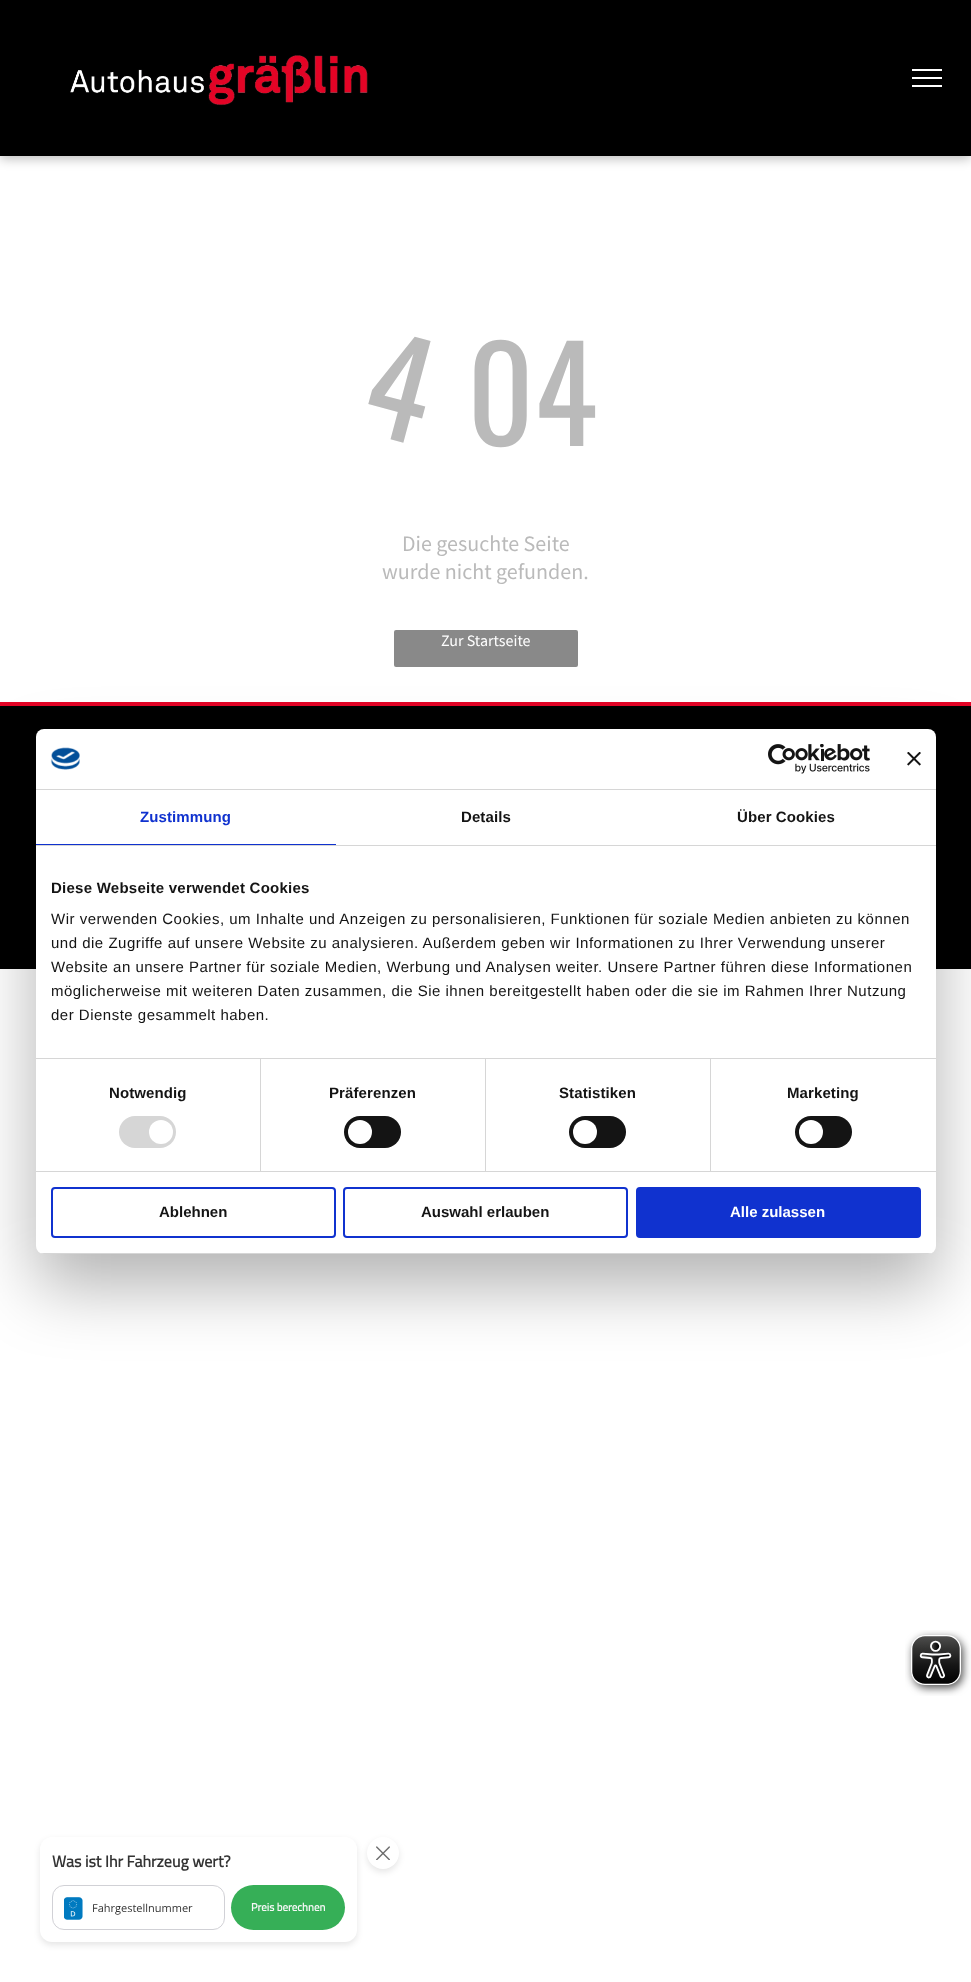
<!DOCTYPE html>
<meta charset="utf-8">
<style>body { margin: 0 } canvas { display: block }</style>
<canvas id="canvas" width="971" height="1982"></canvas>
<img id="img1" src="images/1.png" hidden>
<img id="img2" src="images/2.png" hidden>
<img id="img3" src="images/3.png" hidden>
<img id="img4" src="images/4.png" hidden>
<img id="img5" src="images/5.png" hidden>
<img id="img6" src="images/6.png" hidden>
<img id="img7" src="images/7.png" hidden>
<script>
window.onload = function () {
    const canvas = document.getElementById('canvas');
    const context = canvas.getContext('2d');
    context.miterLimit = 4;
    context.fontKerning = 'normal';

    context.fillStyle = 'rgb(255, 255, 255)';
    context.fillRect(0, 0, 971, 1982);
    context.fillStyle = 'rgba(0, 0, 0, 0.25)';
    context.filter = 'blur(5.5px)';
    context.beginPath();
    context.rect(0, 3, 971, 156);
    context.fill();
    context.filter = 'none';
    context.fillStyle = 'rgb(0, 0, 0)';
    context.fillRect(0, 0, 971, 156);
    context.drawImage(document.getElementById('img1'), 70, 55, 298, 51);
    context.fillStyle = 'rgb(255, 255, 255)';
    context.fillRect(912, 69, 30, 2);
    context.fillRect(912, 77, 30, 2);
    context.fillRect(912, 85, 30, 2);
    context.fillStyle = 'rgb(137, 137, 137)';
    context.beginPath();
    context.roundRect(394, 630, 184, 37, 2);
    context.fill();
    context.fillStyle = 'rgb(0, 0, 0)';
    context.fillRect(0, 706, 971, 263);
    context.fillStyle = 'rgb(228, 4, 38)';
    context.fillRect(0, 702, 971, 4);
    context.fillStyle = 'rgba(0, 0, 0, 0.3)';
    context.filter = 'blur(34px)';
    context.beginPath();
    context.roundRect(36, 761, 900, 525, 8);
    context.fill();
    context.filter = 'none';
    context.fillStyle = 'rgb(255, 255, 255)';
    context.beginPath();
    context.roundRect(36, 729, 900, 525, 8);
    context.fill();
    context.fillStyle = 'rgb(214, 214, 214)';
    context.fillRect(36, 789, 900, 1);
    context.drawImage(document.getElementById('img2'), 50, 747, 30, 23);
    context.drawImage(document.getElementById('img3'), 768, 744, 102, 30);
    context.drawImage(document.getElementById('img4'), 907, 752, 14, 14);
    context.fillRect(36, 845, 900, 1);
    context.fillStyle = 'rgb(16, 50, 207)';
    context.fillRect(36, 844, 300, 1);
    context.fillStyle = 'rgb(214, 214, 214)';
    context.fillRect(36, 1058, 900, 1);
    context.fillRect(36, 1171, 900, 1);
    context.fillRect(260, 1059, 1, 112);
    context.beginPath();
    context.roundRect(119, 1116, 57, 32, 16);
    context.fill();
    context.fillStyle = 'rgb(255, 255, 255)';
    context.beginPath();
    context.arc(161, 1132, 12, 0, 2 * Math.PI);
    context.fill();
    context.fillStyle = 'rgb(214, 214, 214)';
    context.fillRect(485, 1059, 1, 112);
    context.fillStyle = 'rgb(20, 20, 20)';
    context.beginPath();
    context.roundRect(344, 1116, 57, 32, 16);
    context.fill();
    context.fillStyle = 'rgb(255, 255, 255)';
    context.beginPath();
    context.arc(360, 1132, 12, 0, 2 * Math.PI);
    context.fill();
    context.fillStyle = 'rgb(214, 214, 214)';
    context.fillRect(710, 1059, 1, 112);
    context.fillStyle = 'rgb(20, 20, 20)';
    context.beginPath();
    context.roundRect(569, 1116, 57, 32, 16);
    context.fill();
    context.fillStyle = 'rgb(255, 255, 255)';
    context.beginPath();
    context.arc(585, 1132, 12, 0, 2 * Math.PI);
    context.fill();
    context.fillStyle = 'rgb(20, 20, 20)';
    context.beginPath();
    context.roundRect(795, 1116, 57, 32, 16);
    context.fill();
    context.fillStyle = 'rgb(255, 255, 255)';
    context.beginPath();
    context.arc(811, 1132, 12, 0, 2 * Math.PI);
    context.fill();
    context.save();
    context.beginPath();
    context.roundRect(36, 729, 900, 525, 8);
    context.clip();
    context.fillStyle = 'rgb(214, 214, 214)';
    context.fillRect(36, 1253, 900, 1);
    context.restore();
    context.beginPath();
    context.roundRect(52, 1188, 283, 49, 3);
    context.strokeStyle = 'rgb(16, 50, 207)';
    context.lineWidth = 2;
    context.stroke();
    context.beginPath();
    context.roundRect(344, 1188, 283, 49, 3);
    context.stroke();
    context.fillStyle = 'rgb(16, 50, 207)';
    context.beginPath();
    context.roundRect(637, 1188, 283, 49, 3);
    context.fill();
    context.stroke();
    context.drawImage(document.getElementById('img5'), 905, 1630, 66, 66);
    context.fillStyle = 'rgba(0, 0, 0, 0.1)';
    context.filter = 'blur(3px)';
    context.beginPath();
    context.roundRect(40, 1840, 317, 105, 12);
    context.fill();
    context.filter = 'none';
    context.fillStyle = 'rgb(255, 255, 255)';
    context.beginPath();
    context.roundRect(40, 1837, 317, 105, 12);
    context.fill();
    context.drawImage(document.getElementById('img6'), 64, 1897, 19, 23);
    context.beginPath();
    context.roundRect(52.5, 1885.5, 172, 44, 11.5);
    context.strokeStyle = 'rgb(209, 209, 214)';
    context.lineWidth = 1;
    context.stroke();
    context.fillStyle = 'rgb(54, 175, 87)';
    context.beginPath();
    context.roundRect(231, 1885, 114, 45, 22.5);
    context.fill();
    context.fillStyle = 'rgba(0, 0, 0, 0.1)';
    context.filter = 'blur(3px)';
    context.beginPath();
    context.roundRect(367, 1840, 32, 32, 16);
    context.fill();
    context.filter = 'none';
    context.fillStyle = 'rgb(255, 255, 255)';
    context.beginPath();
    context.arc(383, 1853, 16, 0, 2 * Math.PI);
    context.fill();
    context.drawImage(document.getElementById('img7'), 376, 1846, 14, 14);
    context.font = '130px Oswald';
    context.fillStyle = 'rgb(186, 186, 186)';
    context.save();
    context.translate(356, 430);
    context.rotate(15 * Math.PI / 180);
    context.fillText('4', 0, 0);
    context.restore();
    context.fillText('04', 467, 446);
    context.font = '22px Source Sans Pro';
    context.fillText('Die gesuchte Seite', 402, 551);
    context.fillText('wurde nicht gefunden.', 382, 579);
    context.font = '16px Source Sans Pro';
    context.fillStyle = 'rgb(255, 255, 255)';
    context.fillText('Zur Startseite', 441, 646);
    context.letterSpacing = '0.1px';
    context.font = 'bold 15px Liberation Sans';
    context.fillStyle = 'rgb(16, 50, 207)';
    context.fillText('Zustimmung', 140, 822);
    context.fillStyle = 'rgb(20, 20, 20)';
    context.fillText('Details', 461, 822);
    context.fillText('Über Cookies', 737, 822);
    context.letterSpacing = '0.25px';
    context.fillText('Diese Webseite verwendet Cookies', 51, 893);
    context.letterSpacing = '0.5px';
    context.font = '15px Liberation Sans';
    context.fillText('Wir verwenden Cookies, um Inhalte und Anzeigen zu personalisieren, Funktionen für soziale Medien anbieten zu können', 51, 924);
    context.fillText('und die Zugriffe auf unsere Website zu analysieren. Außerdem geben wir Informationen zu Ihrer Verwendung unserer', 51, 948);
    context.fillText('Website an unsere Partner für soziale Medien, Werbung und Analysen weiter. Unsere Partner führen diese Informationen', 51, 972);
    context.fillText('möglicherweise mit weiteren Daten zusammen, die Sie ihnen bereitgestellt haben oder die sie im Rahmen Ihrer Nutzung', 51, 996);
    context.fillText('der Dienste gesammelt haben.', 51, 1020);
    context.letterSpacing = '0.1px';
    context.font = 'bold 15px Liberation Sans';
    context.fillText('Notwendig', 109, 1098);
    context.fillText('Präferenzen', 329, 1098);
    context.fillText('Statistiken', 559, 1098);
    context.fillText('Marketing', 787, 1098);
    context.letterSpacing = '0px';
    context.fillText('Ablehnen', 159, 1217);
    context.fillText('Auswahl erlauben', 421, 1217);
    context.fillStyle = 'rgb(255, 255, 255)';
    context.fillText('Alle zulassen', 730, 1217);
    context.font = 'bold 16px Titillium Web';
    context.fillStyle = 'rgb(51, 51, 51)';
    context.fillText('Was ist Ihr Fahrzeug wert?', 52, 1867);
    context.font = '11px Open Sans';
    context.fillText('Fahrgestellnummer', 92, 1912);
    context.font = 'bold 11px Titillium Web';
    context.fillStyle = 'rgb(248, 248, 248)';
    context.fillText('Preis berechnen', 251, 1911);
};
</script>
